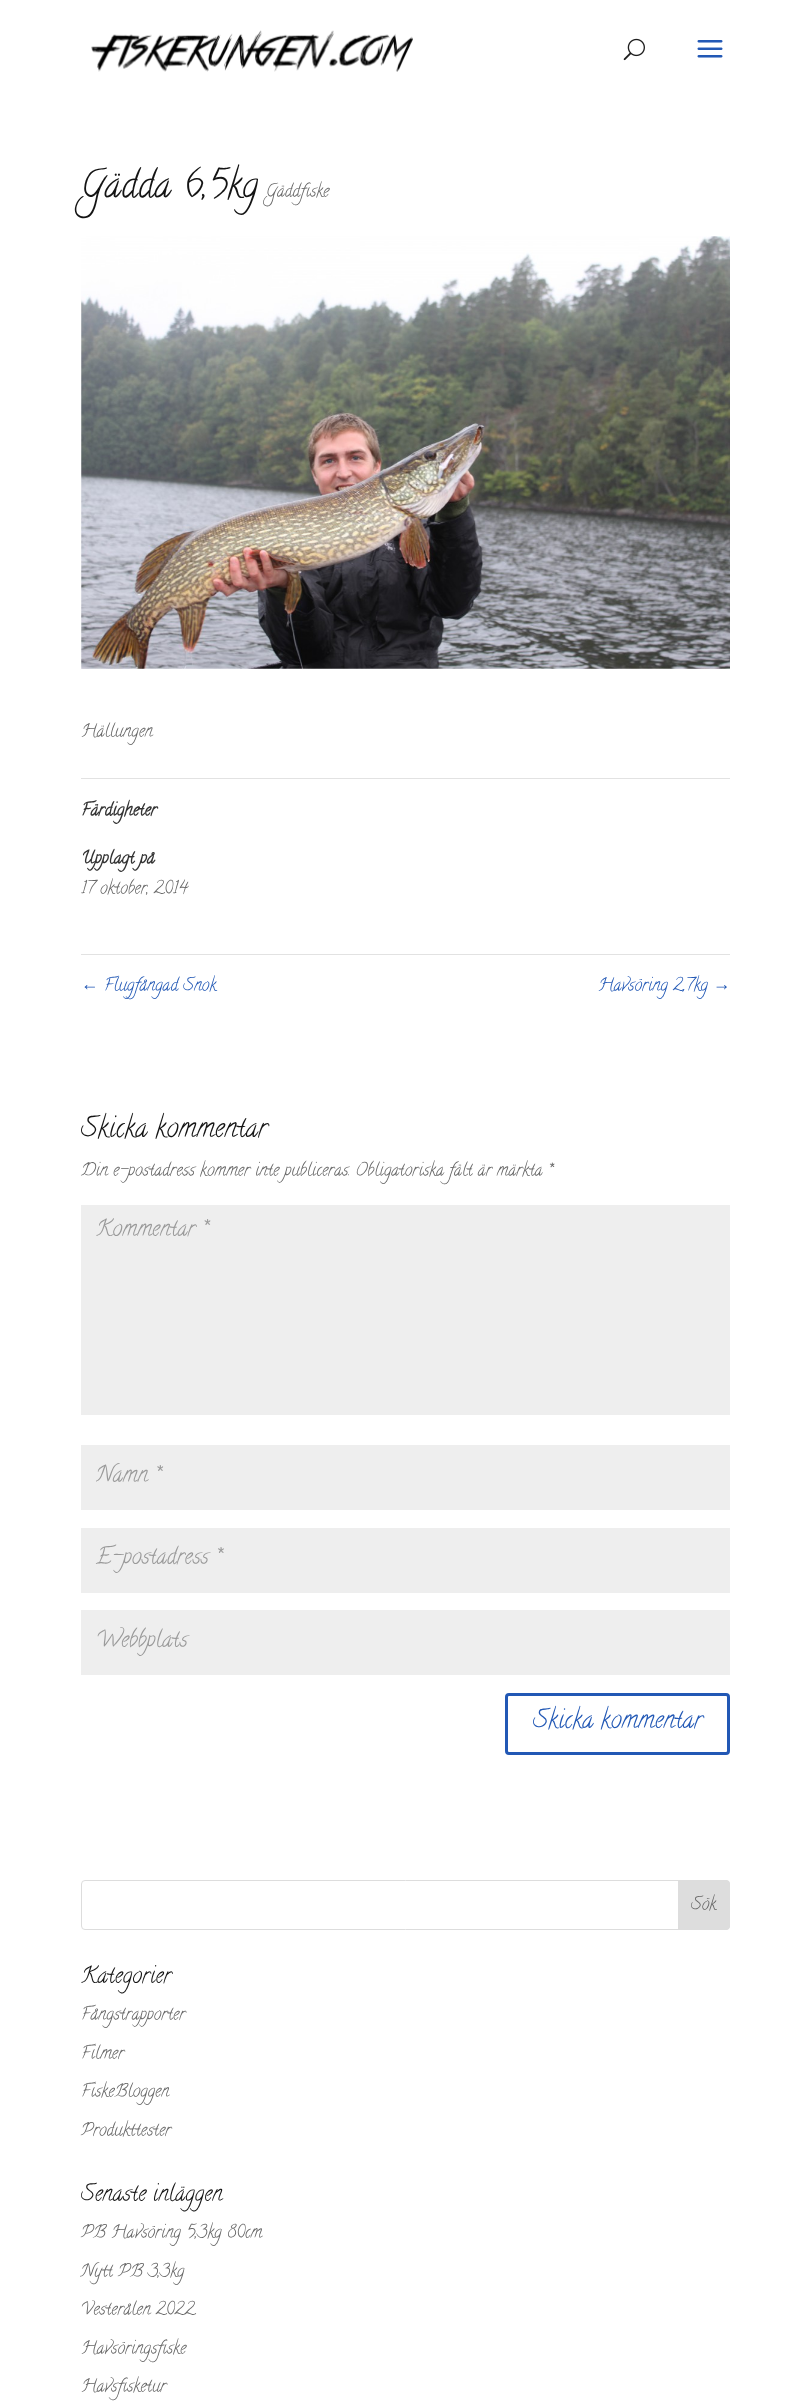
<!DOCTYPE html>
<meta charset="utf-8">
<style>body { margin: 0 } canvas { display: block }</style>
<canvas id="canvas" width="811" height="2402"></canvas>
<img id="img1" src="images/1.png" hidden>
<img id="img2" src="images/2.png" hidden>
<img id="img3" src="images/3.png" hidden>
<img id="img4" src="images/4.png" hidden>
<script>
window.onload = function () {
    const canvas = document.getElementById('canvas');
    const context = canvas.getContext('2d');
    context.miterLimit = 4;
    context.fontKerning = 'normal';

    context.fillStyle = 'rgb(255, 255, 255)';
    context.fillRect(0, 0, 811, 2402);
    context.drawImage(document.getElementById('img1'), 91, 30, 322, 42);
    context.drawImage(document.getElementById('img2'), 623, 38, 22, 23);
    context.drawImage(document.getElementById('img3'), 697, 40, 26, 18);
    context.drawImage(document.getElementById('img4'), 81, 236, 649, 433);
    context.fillStyle = 'rgb(226, 226, 226)';
    context.fillRect(81, 778, 649, 1);
    context.fillRect(81, 954, 649, 1);
    context.fillStyle = 'rgb(238, 238, 238)';
    context.fillRect(81, 1205, 649, 210);
    context.fillRect(81, 1445, 649, 65);
    context.fillRect(81, 1528, 649, 65);
    context.fillRect(81, 1610, 649, 65);
    context.beginPath();
    context.roundRect(506.5, 1694.5, 222, 59, 2.5);
    context.strokeStyle = 'rgb(34, 88, 181)';
    context.lineWidth = 3;
    context.stroke();
    context.beginPath();
    context.roundRect(81.5, 1880.5, 648, 49, 3.5);
    context.strokeStyle = 'rgb(221, 221, 221)';
    context.lineWidth = 1;
    context.stroke();
    context.fillStyle = 'rgb(221, 221, 221)';
    context.beginPath();
    context.roundRect(678.5, 1880.5, 51, 49, [0, 3.5, 3.5, 0]);
    context.fill();
    context.stroke();
    context.font = '37.5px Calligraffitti';
    context.fillStyle = 'rgb(20, 20, 20)';
    context.fillText('Gädda 6,5kg', 81, 196);
    context.font = '17.5px Calligraffitti';
    context.fillStyle = 'rgb(102, 102, 102)';
    context.fillText('Gäddfiske', 266, 196);
    context.fillText('Hällungen', 81, 736);
    context.font = 'bold 17.5px Calligraffitti';
    context.fillStyle = 'rgb(51, 51, 51)';
    context.fillText('Färdigheter', 81, 815);
    context.fillText('Upplagt på', 81, 863);
    context.font = '17.5px Calligraffitti';
    context.fillStyle = 'rgb(102, 102, 102)';
    context.fillText('17 oktober, 2014', 81, 893);
    context.font = '17.5px Liberation Serif';
    context.fillStyle = 'rgb(34, 88, 181)';
    context.fillText('←', 81, 990);
    context.font = '17.5px Calligraffitti';
    context.fillText('Flugfångad Snok', 104, 990);
    context.fillText('Havsöring 2,7kg', 598, 990);
    context.font = '17.5px Liberation Serif';
    context.fillText('→', 713, 990);
    context.font = '27.5px Calligraffitti';
    context.fillStyle = 'rgb(20, 20, 20)';
    context.fillText('Skicka kommentar', 81, 1136);
    context.font = '17.5px Calligraffitti';
    context.fillStyle = 'rgb(102, 102, 102)';
    context.fillText('Din e-postadress kommer inte publiceras. Obligatoriska fält är märkta *', 81, 1175);
    context.font = '22.5px Calligraffitti';
    context.fillStyle = 'rgb(153, 153, 153)';
    context.fillText('Kommentar *', 96, 1235);
    context.save();
    context.beginPath();
    context.rect(96, 1460, 619, 35);
    context.clip();
    context.fillText('Namn *', 96, 1481);
    context.restore();
    context.fillText('E-postadress *', 96, 1563);
    context.fillText('Webbplats', 96, 1646);
    context.font = '25px Calligraffitti';
    context.fillStyle = 'rgb(34, 88, 181)';
    context.fillText('Skicka kommentar', 533, 1727);
    context.font = '17.5px Calligraffitti';
    context.fillStyle = 'rgb(102, 102, 102)';
    context.fillText('Sök', 691, 1909);
    context.font = '22.5px Calligraffitti';
    context.fillStyle = 'rgb(20, 20, 20)';
    context.fillText('Kategorier', 81, 1982);
    context.font = '17.5px Calligraffitti';
    context.fillStyle = 'rgb(102, 102, 102)';
    context.fillText('Fångstrapporter', 81, 2019);
    context.fillText('Filmer', 81, 2058);
    context.fillText('FiskeBloggen', 81, 2096);
    context.fillText('Produkttester', 81, 2135);
    context.font = '22.5px Calligraffitti';
    context.fillStyle = 'rgb(20, 20, 20)';
    context.fillText('Senaste inläggen', 81, 2200);
    context.font = '17.5px Calligraffitti';
    context.fillStyle = 'rgb(102, 102, 102)';
    context.fillText('PB Havsöring 5,3kg 80cm', 81, 2237);
    context.fillText('Nytt PB 3,3kg', 81, 2276);
    context.fillText('Vesterålen 2022', 81, 2314);
    context.fillText('Havsöringsfiske', 81, 2353);
    context.fillText('Havsfisketur', 81, 2391);
};
</script>
